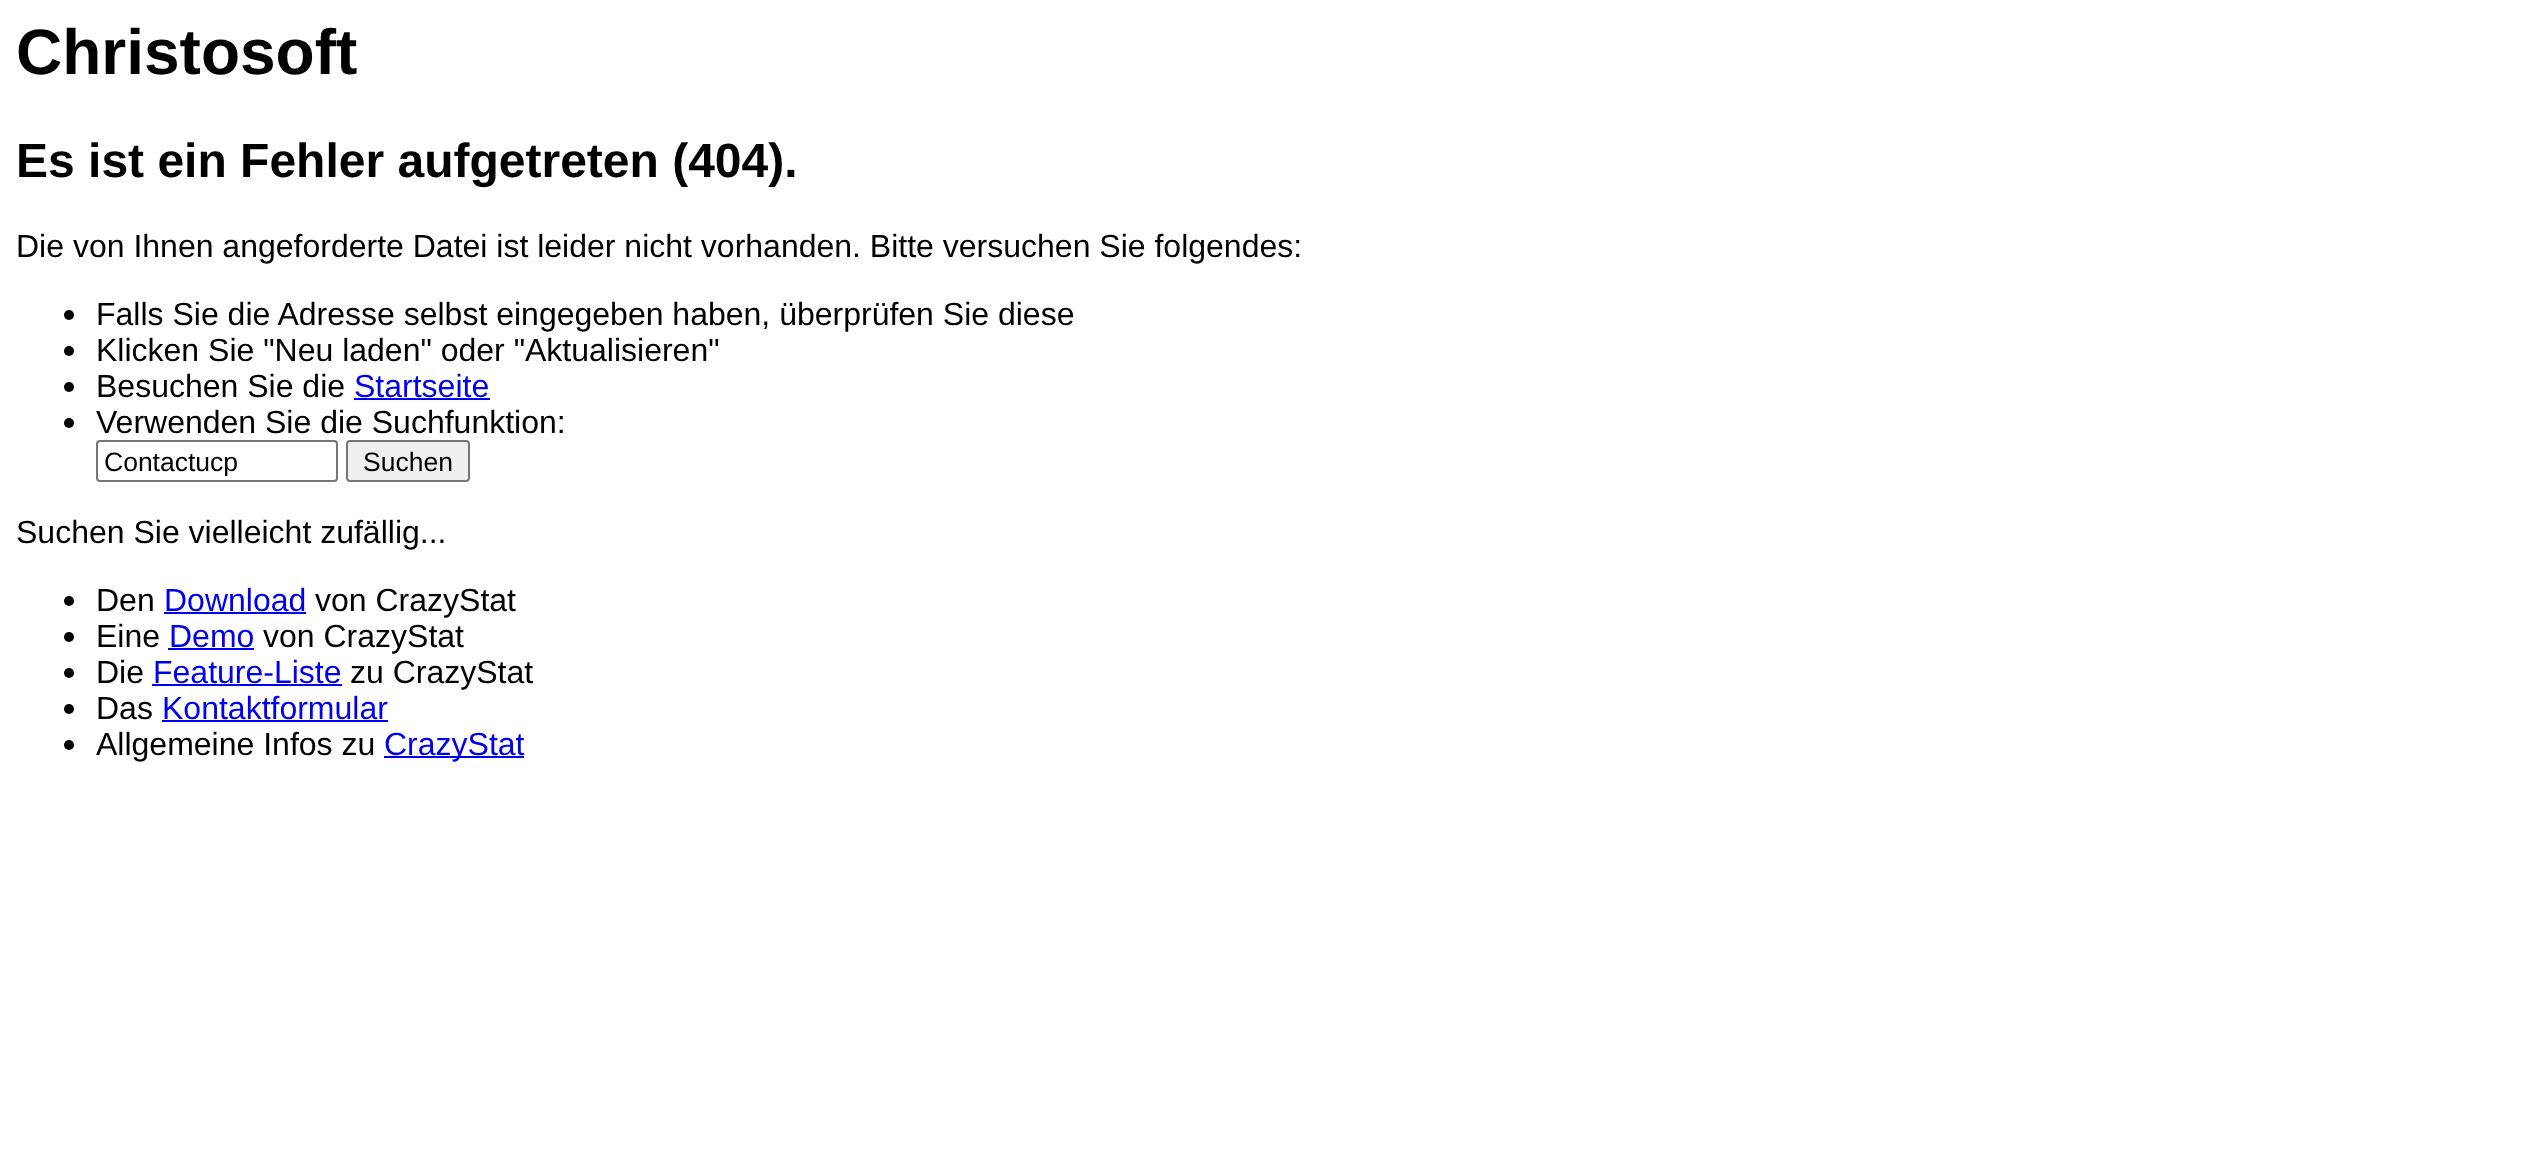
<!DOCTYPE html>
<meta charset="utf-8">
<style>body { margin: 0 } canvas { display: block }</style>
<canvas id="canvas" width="2529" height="1175"></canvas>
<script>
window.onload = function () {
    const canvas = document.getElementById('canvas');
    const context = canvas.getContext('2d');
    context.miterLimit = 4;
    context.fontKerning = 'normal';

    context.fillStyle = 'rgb(255, 255, 255)';
    context.fillRect(0, 0, 2529, 1175);
    context.fillStyle = 'rgb(0, 0, 0)';
    context.beginPath();
    context.arc(69, 315, 5, 0, 2 * Math.PI);
    context.fill();
    context.beginPath();
    context.arc(69, 351, 5, 0, 2 * Math.PI);
    context.fill();
    context.beginPath();
    context.arc(69, 387, 5, 0, 2 * Math.PI);
    context.fill();
    context.fillStyle = 'rgb(0, 0, 238)';
    context.fillRect(354, 398, 136, 2);
    context.fillStyle = 'rgb(0, 0, 0)';
    context.beginPath();
    context.arc(69, 423, 5, 0, 2 * Math.PI);
    context.fill();
    context.beginPath();
    context.roundRect(97, 441, 240, 40, 3);
    context.strokeStyle = 'rgb(118, 118, 118)';
    context.lineWidth = 2;
    context.stroke();
    context.fillStyle = 'rgb(239, 239, 239)';
    context.beginPath();
    context.roundRect(347, 441, 122, 40, 3);
    context.fill();
    context.stroke();
    context.fillStyle = 'rgb(0, 0, 0)';
    context.beginPath();
    context.arc(69, 601, 5, 0, 2 * Math.PI);
    context.fill();
    context.fillStyle = 'rgb(0, 0, 238)';
    context.fillRect(164, 612, 142, 2);
    context.fillStyle = 'rgb(0, 0, 0)';
    context.beginPath();
    context.arc(69, 637, 5, 0, 2 * Math.PI);
    context.fill();
    context.fillStyle = 'rgb(0, 0, 238)';
    context.fillRect(168, 648, 86, 2);
    context.fillStyle = 'rgb(0, 0, 0)';
    context.beginPath();
    context.arc(69, 673, 5, 0, 2 * Math.PI);
    context.fill();
    context.fillStyle = 'rgb(0, 0, 238)';
    context.fillRect(152, 684, 190, 2);
    context.fillStyle = 'rgb(0, 0, 0)';
    context.beginPath();
    context.arc(69, 709, 5, 0, 2 * Math.PI);
    context.fill();
    context.fillStyle = 'rgb(0, 0, 238)';
    context.fillRect(162, 720, 226, 2);
    context.fillStyle = 'rgb(0, 0, 0)';
    context.beginPath();
    context.arc(69, 745, 5, 0, 2 * Math.PI);
    context.fill();
    context.fillStyle = 'rgb(0, 0, 238)';
    context.fillRect(384, 756, 140, 2);
    context.font = 'bold 64px Liberation Sans';
    context.fillStyle = 'rgb(0, 0, 0)';
    context.fillText('Christosoft', 16, 74);
    context.font = 'bold 48px Liberation Sans';
    context.fillText('Es ist ein Fehler aufgetreten (404).', 16, 177);
    context.font = '32px Liberation Sans';
    context.fillText('Die von Ihnen angeforderte Datei ist leider nicht vorhanden. Bitte versuchen Sie folgendes:', 16, 257);
    context.fillText('Falls Sie die Adresse selbst eingegeben haben, überprüfen Sie diese', 96, 325);
    context.fillText('Klicken Sie "Neu laden" oder "Aktualisieren"', 96, 361);
    context.fillText('Besuchen Sie die', 96, 397);
    context.fillStyle = 'rgb(0, 0, 238)';
    context.fillText('Startseite', 354, 397);
    context.fillStyle = 'rgb(0, 0, 0)';
    context.fillText('Verwenden Sie die Suchfunktion:', 96, 433);
    context.save();
    context.beginPath();
    context.rect(104, 446, 226, 30);
    context.clip();
    context.font = '26.5px Liberation Sans';
    context.fillText('Contactucp', 104, 471);
    context.restore();
    context.font = '26.5px Liberation Sans';
    context.fillText('Suchen', 363, 471);
    context.font = '32px Liberation Sans';
    context.fillText('Suchen Sie vielleicht zufällig...', 16, 543);
    context.fillText('Den', 96, 611);
    context.fillStyle = 'rgb(0, 0, 238)';
    context.fillText('Download', 164, 611);
    context.fillStyle = 'rgb(0, 0, 0)';
    context.fillText('von CrazyStat', 315, 611);
    context.fillText('Eine', 96, 647);
    context.fillStyle = 'rgb(0, 0, 238)';
    context.fillText('Demo', 169, 647);
    context.fillStyle = 'rgb(0, 0, 0)';
    context.fillText('von CrazyStat', 263, 647);
    context.fillText('Die', 96, 683);
    context.fillStyle = 'rgb(0, 0, 238)';
    context.fillText('Feature-Liste', 153, 683);
    context.fillStyle = 'rgb(0, 0, 0)';
    context.fillText('zu CrazyStat', 350, 683);
    context.fillText('Das', 96, 719);
    context.fillStyle = 'rgb(0, 0, 238)';
    context.fillText('Kontaktformular', 162, 719);
    context.fillStyle = 'rgb(0, 0, 0)';
    context.fillText('Allgemeine Infos zu', 96, 755);
    context.fillStyle = 'rgb(0, 0, 238)';
    context.fillText('CrazyStat', 384, 755);
};
</script>
